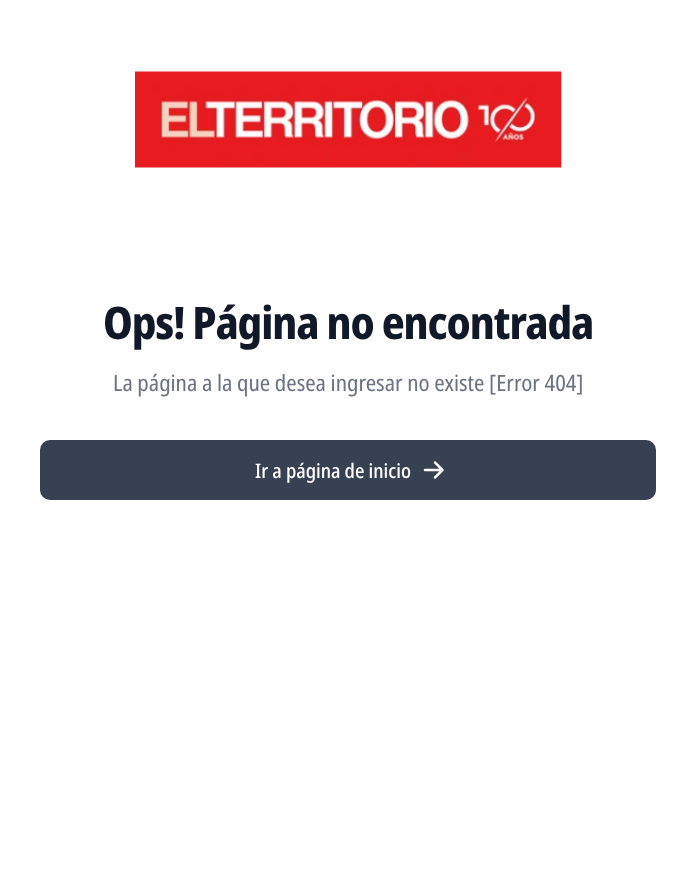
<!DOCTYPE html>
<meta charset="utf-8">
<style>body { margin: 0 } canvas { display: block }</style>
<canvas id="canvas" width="696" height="895"></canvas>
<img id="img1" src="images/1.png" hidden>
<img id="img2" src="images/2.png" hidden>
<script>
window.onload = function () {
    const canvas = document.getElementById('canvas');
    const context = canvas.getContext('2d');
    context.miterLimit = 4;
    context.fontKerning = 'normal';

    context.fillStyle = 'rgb(255, 255, 255)';
    context.fillRect(0, 0, 696, 895);
    context.drawImage(document.getElementById('img1'), 135, 71, 427, 97);
    context.fillStyle = 'rgb(55, 65, 81)';
    context.beginPath();
    context.roundRect(40, 440, 616, 60, 10);
    context.fill();
    context.drawImage(document.getElementById('img2'), 423, 461, 21, 18);
    context.letterSpacing = '-1.1px';
    context.font = '800 45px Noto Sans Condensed';
    context.fillStyle = 'rgb(17, 24, 39)';
    context.fillText('Ops! Página no encontrada', 103, 339);
    context.letterSpacing = '0px';
    context.font = '22.5px Noto Sans Condensed';
    context.fillStyle = 'rgb(107, 114, 128)';
    context.fillText('La página a la que desea ingresar no existe [Error 404]', 113, 391);
    context.font = '500 20px Noto Sans Condensed';
    context.fillStyle = 'rgb(255, 255, 255)';
    context.fillText('Ir a página de inicio', 255, 478);
};
</script>
